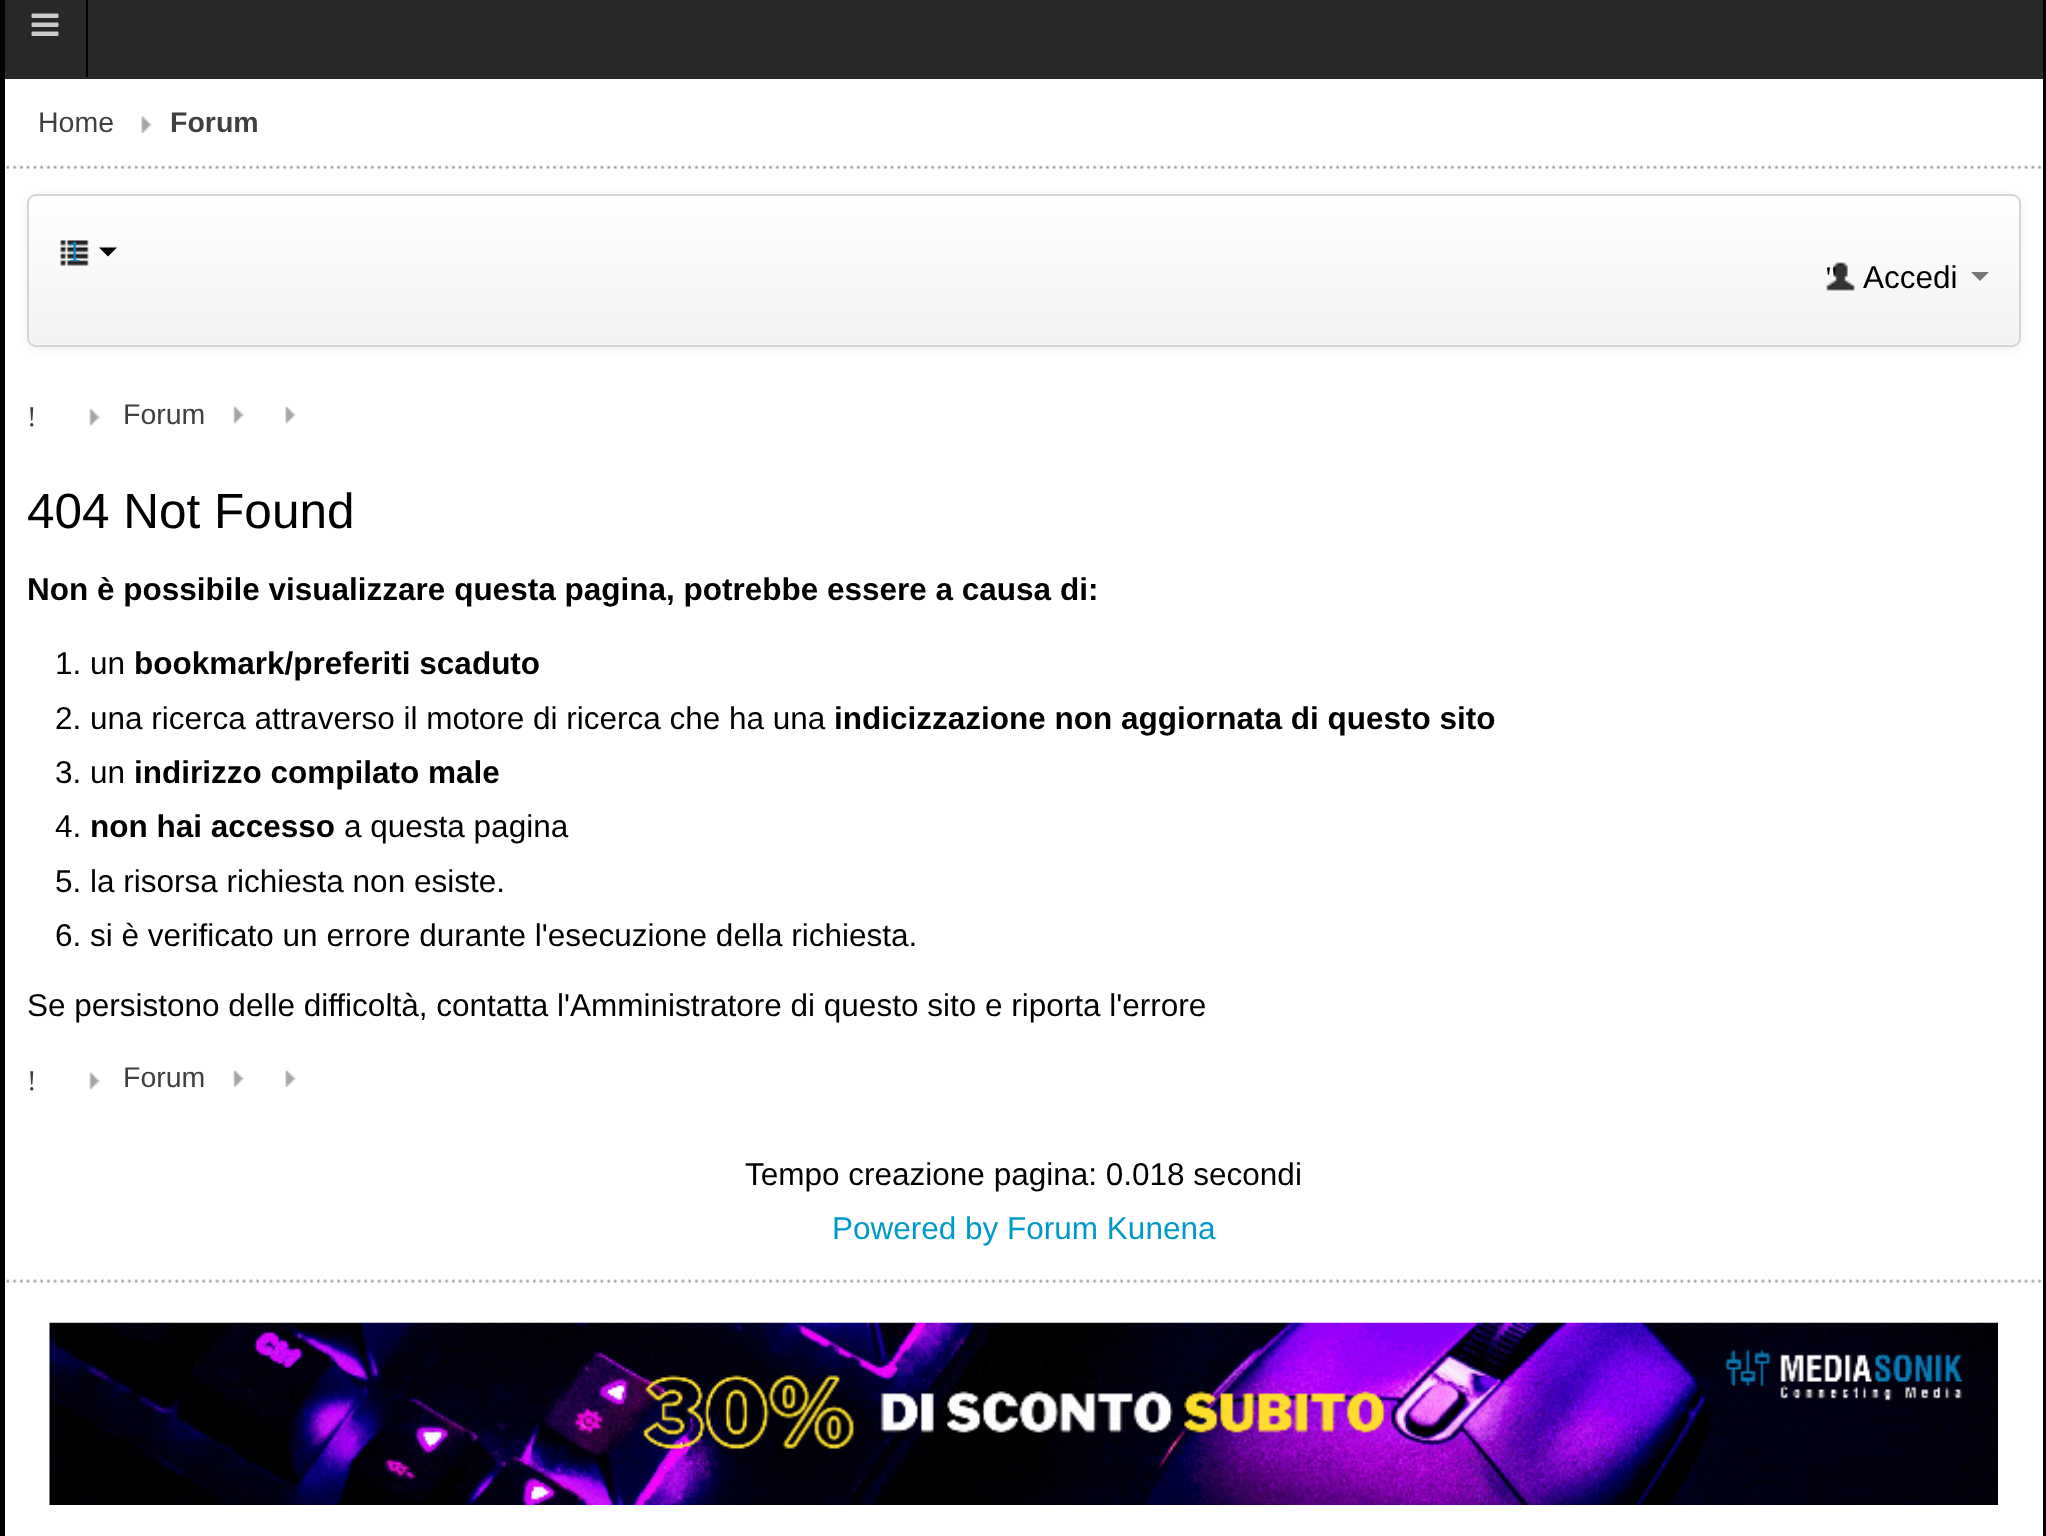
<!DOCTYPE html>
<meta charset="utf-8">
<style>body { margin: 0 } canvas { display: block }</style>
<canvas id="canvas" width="2046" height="1536"></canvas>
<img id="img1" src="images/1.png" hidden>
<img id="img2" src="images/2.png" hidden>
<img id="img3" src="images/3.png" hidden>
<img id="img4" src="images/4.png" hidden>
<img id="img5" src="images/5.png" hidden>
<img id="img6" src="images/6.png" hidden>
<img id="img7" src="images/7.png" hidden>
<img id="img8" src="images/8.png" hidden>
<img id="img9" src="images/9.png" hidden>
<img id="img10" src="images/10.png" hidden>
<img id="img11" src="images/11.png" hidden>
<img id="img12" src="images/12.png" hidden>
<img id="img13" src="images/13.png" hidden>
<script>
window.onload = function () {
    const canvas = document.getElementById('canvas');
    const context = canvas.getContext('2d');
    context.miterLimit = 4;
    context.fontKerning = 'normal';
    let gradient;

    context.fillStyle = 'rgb(0, 0, 0)';
    context.fillRect(0, 0, 2046, 1536);
    context.fillStyle = 'rgb(255, 255, 255)';
    context.fillRect(5, 79, 2038, 1457);
    context.fillStyle = 'rgb(40, 40, 40)';
    context.fillRect(5, 0, 2038, 79);
    context.fillStyle = 'rgb(0, 0, 0)';
    context.fillRect(86, 0, 2, 77);
    context.drawImage(document.getElementById('img1'), 31, 13, 28, 23);
    context.drawImage(document.getElementById('img2'), 6, 165, 2036, 5);
    context.drawImage(document.getElementById('img3'), 141, 116, 11, 17);
    context.fillStyle = 'rgba(0, 0, 0, 0.07)';
    context.filter = 'blur(4.5px)';
    context.beginPath();
    context.roundRect(27, 196, 1994, 153, 9);
    context.fill();
    context.filter = 'none';
    context.fillStyle = 'rgb(250, 250, 250)';
    context.beginPath();
    context.roundRect(27, 194, 1994, 153, 9);
    context.fill();
    context.save();
    context.beginPath();
    context.roundRect(27, 194, 1994, 153, 9);
    context.clip();
    gradient = context.createLinearGradient(1024, 196, 1024, 344);
    gradient.addColorStop(0, 'rgb(255, 255, 255)');
    gradient.addColorStop(1, 'rgb(242, 242, 242)');
    context.fillStyle = gradient;
    context.fillRect(27, 196, 1994, 148);
    context.restore();
    context.beginPath();
    context.roundRect(28, 195, 1992, 151, 8);
    context.strokeStyle = 'rgb(212, 212, 212)';
    context.lineWidth = 2;
    context.stroke();
    context.drawImage(document.getElementById('img4'), 60, 240, 29, 26);
    context.fillStyle = 'rgb(0, 0, 0)';
    context.beginPath();
    context.moveTo(99, 247.5);
    context.lineTo(117, 247.5);
    context.lineTo(108, 256.5);
    context.closePath();
    context.fill();
    context.drawImage(document.getElementById('img5'), 1826, 262, 29, 29);
    context.fillStyle = 'rgb(119, 119, 119)';
    context.beginPath();
    context.moveTo(1971, 272);
    context.lineTo(1989, 272);
    context.lineTo(1980, 281);
    context.closePath();
    context.fill();
    context.drawImage(document.getElementById('img6'), 89, 408, 11, 18);
    context.drawImage(document.getElementById('img7'), 285, 406, 11, 18);
    context.drawImage(document.getElementById('img8'), 233, 406, 11, 18);
    context.drawImage(document.getElementById('img9'), 89, 1072, 11, 18);
    context.drawImage(document.getElementById('img10'), 285, 1070, 11, 17);
    context.drawImage(document.getElementById('img11'), 233, 1070, 11, 17);
    context.drawImage(document.getElementById('img12'), 6, 1279, 2036, 4);
    context.drawImage(document.getElementById('img13'), 49, 1322, 1949, 183);
    context.font = '28.5px Liberation Sans';
    context.fillStyle = 'rgb(64, 64, 64)';
    context.fillText('Home', 38, 132);
    context.font = 'bold 28.5px Liberation Sans';
    context.fillText('Forum', 170, 132);
    context.font = '29px Liberation Serif';
    context.fillStyle = 'rgb(0, 136, 204)';
    context.fillText('1', 67, 261);
    context.font = '31.5px Liberation Serif';
    context.fillStyle = 'rgb(0, 0, 0)';
    context.fillText('"', 1825, 288);
    context.font = '31.5px Liberation Sans';
    context.fillText('Accedi', 1863, 288);
    context.font = '28.5px Liberation Serif';
    context.fillStyle = 'rgb(64, 64, 64)';
    context.fillText('!', 27, 426);
    context.font = '28.5px Liberation Sans';
    context.fillText('Forum', 123, 424);
    context.font = '49.5px Liberation Sans';
    context.fillStyle = 'rgb(0, 0, 0)';
    context.fillText('404 Not Found', 27, 528);
    context.font = 'bold 31.5px Liberation Sans';
    context.fillText('Non è possibile visualizzare questa pagina, potrebbe essere a causa di:', 27, 600);
    context.font = '31.5px Liberation Sans';
    context.fillText('1. un', 55, 674);
    context.font = 'bold 31.5px Liberation Sans';
    context.fillText('bookmark/preferiti scaduto', 134, 674);
    context.font = '31.5px Liberation Sans';
    context.fillText('2. una ricerca attraverso il motore di ricerca che ha una', 55, 729);
    context.font = 'bold 31.5px Liberation Sans';
    context.fillText('indicizzazione non aggiornata di questo sito', 834, 729);
    context.font = '31.5px Liberation Sans';
    context.fillText('3. un', 55, 783);
    context.font = 'bold 31.5px Liberation Sans';
    context.fillText('indirizzo compilato male', 134, 783);
    context.font = '31.5px Liberation Sans';
    context.fillText('4.', 55, 837);
    context.font = 'bold 31.5px Liberation Sans';
    context.fillText('non hai accesso', 90, 837);
    context.font = '31.5px Liberation Sans';
    context.fillText('a questa pagina', 344, 837);
    context.fillText('5. la risorsa richiesta non esiste.', 55, 892);
    context.fillText('6. si è verificato un errore durante l\'esecuzione della richiesta.', 55, 946);
    context.fillText('Se persistono delle difficoltà, contatta l\'Amministratore di questo sito e riporta l\'errore', 27, 1016);
    context.font = '28.5px Liberation Serif';
    context.fillStyle = 'rgb(64, 64, 64)';
    context.fillText('!', 27, 1090);
    context.font = '28.5px Liberation Sans';
    context.fillText('Forum', 123, 1087);
    context.font = '31.5px Liberation Sans';
    context.fillStyle = 'rgb(0, 0, 0)';
    context.fillText('Tempo creazione pagina: 0.018 secondi', 745, 1185);
    context.fillStyle = 'rgb(0, 154, 202)';
    context.fillText('Powered by Forum Kunena', 832, 1239);
};
</script>
